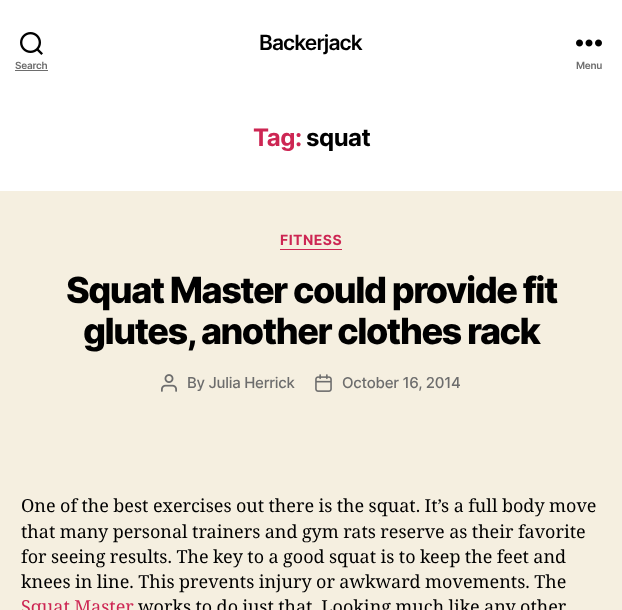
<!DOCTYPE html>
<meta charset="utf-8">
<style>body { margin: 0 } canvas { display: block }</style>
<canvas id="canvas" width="622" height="610"></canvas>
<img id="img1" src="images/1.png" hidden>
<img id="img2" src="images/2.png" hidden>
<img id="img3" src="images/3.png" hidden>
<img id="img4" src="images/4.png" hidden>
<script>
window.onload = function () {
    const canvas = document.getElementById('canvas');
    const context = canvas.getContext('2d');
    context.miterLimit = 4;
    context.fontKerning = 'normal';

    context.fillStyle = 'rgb(245, 239, 224)';
    context.fillRect(0, 0, 622, 610);
    context.fillStyle = 'rgb(255, 255, 255)';
    context.fillRect(0, 0, 622, 191);
    context.drawImage(document.getElementById('img1'), 20, 32, 23, 23);
    context.fillStyle = 'rgb(109, 109, 109)';
    context.fillRect(15, 70, 33, 1);
    context.drawImage(document.getElementById('img2'), 576, 39, 26, 8);
    context.fillStyle = 'rgb(205, 38, 83)';
    context.fillRect(280, 249, 62, 1);
    context.drawImage(document.getElementById('img3'), 161, 374, 16, 18);
    context.drawImage(document.getElementById('img4'), 315, 374, 17, 18);
    context.letterSpacing = '-0.9px';
    context.font = '600 21px Inter';
    context.fillStyle = 'rgb(0, 0, 0)';
    context.fillText('Backerjack', 259, 50);
    context.letterSpacing = '-0.25px';
    context.font = '600 10px Inter';
    context.fillStyle = 'rgb(109, 109, 109)';
    context.fillText('Search', 15, 69);
    context.fillText('Menu', 576, 69);
    context.letterSpacing = '-0.5px';
    context.font = 'bold 24px Inter';
    context.fillStyle = 'rgb(205, 38, 83)';
    context.fillText('Tag:', 253, 146);
    context.fillStyle = 'rgb(0, 0, 0)';
    context.fillText('squat', 306, 146);
    context.letterSpacing = '0.5px';
    context.font = 'bold 14px Inter';
    context.fillStyle = 'rgb(205, 38, 83)';
    context.fillText('FITNESS', 280, 245);
    context.letterSpacing = '-1.5px';
    context.font = '800 36px Inter';
    context.fillStyle = 'rgb(0, 0, 0)';
    context.fillText('Squat Master could provide fit', 66, 303);
    context.fillText('glutes, another clothes rack', 83, 344);
    context.letterSpacing = '-0.25px';
    context.font = '500 15px Inter';
    context.fillStyle = 'rgb(109, 109, 109)';
    context.fillText('By Julia Herrick', 187, 388);
    context.fillText('October 16, 2014', 342, 388);
    context.letterSpacing = '0px';
    context.wordSpacing = '-0.25px';
    context.font = '18px Noto Serif';
    context.fillStyle = 'rgb(0, 0, 0)';
    context.fillText('One of the best exercises out there is the squat. It’s a full body move', 21, 512);
    context.fillText('that many personal trainers and gym rats reserve as their favorite', 21, 538);
    context.fillText('for seeing results. The key to a good squat is to keep the feet and', 21, 563);
    context.fillText('knees in line. This prevents injury or awkward movements. The', 21, 588);
    context.fillStyle = 'rgb(205, 38, 83)';
    context.fillText('Squat Master', 21, 613);
    context.fillStyle = 'rgb(0, 0, 0)';
    context.fillText('works to do just that. Looking much like any other', 138, 613);
};
</script>
